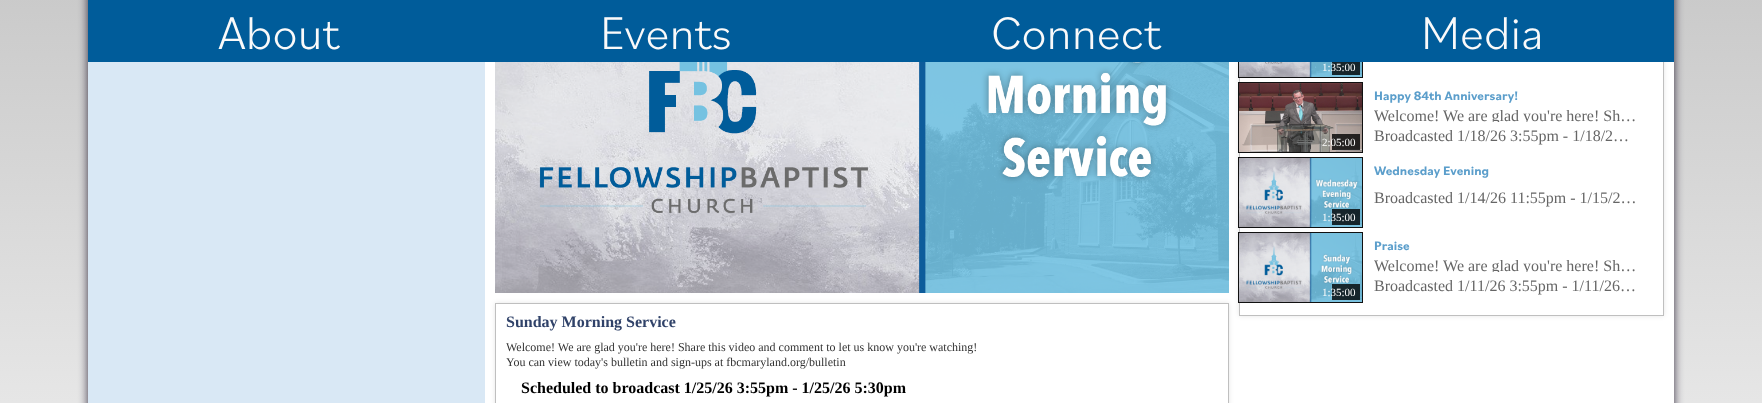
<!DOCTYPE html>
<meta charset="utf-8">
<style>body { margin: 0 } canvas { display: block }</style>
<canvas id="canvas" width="1762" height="403"></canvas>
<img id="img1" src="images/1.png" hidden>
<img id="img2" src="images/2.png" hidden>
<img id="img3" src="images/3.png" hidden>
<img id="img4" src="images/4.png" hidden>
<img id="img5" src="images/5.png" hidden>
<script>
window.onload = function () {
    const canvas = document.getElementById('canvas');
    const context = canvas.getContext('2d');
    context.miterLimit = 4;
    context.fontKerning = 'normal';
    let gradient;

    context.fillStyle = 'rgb(255, 255, 255)';
    context.fillRect(0, 0, 1762, 403);
    gradient = context.createLinearGradient(881, -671, 881, 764);
    gradient.addColorStop(0, 'rgb(156, 156, 156)');
    gradient.addColorStop(1, 'rgb(255, 255, 255)');
    context.fillStyle = gradient;
    context.fillRect(0, 0, 1762, 403);
    context.fillStyle = 'rgba(12, 3, 25, 0.8)';
    context.filter = 'blur(5px)';
    context.beginPath();
    context.roundRect(88, -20, 1586, 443, 5);
    context.fill();
    context.filter = 'none';
    context.fillStyle = 'rgb(255, 255, 255)';
    context.fillRect(485, 62, 1189, 341);
    context.save();
    context.beginPath();
    context.moveTo(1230, 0);
    context.lineTo(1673, 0);
    context.lineTo(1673, 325);
    context.lineTo(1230, 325);
    context.closePath();
    context.moveTo(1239, -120);
    context.lineTo(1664, -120);
    context.lineTo(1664, 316);
    context.lineTo(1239, 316);
    context.closePath();
    context.clip('evenodd');
    context.fillStyle = 'rgba(0, 0, 0, 0.1)';
    context.filter = 'blur(2.5px)';
    context.beginPath();
    context.rect(1239, -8, 425, 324);
    context.fill();
    context.filter = 'none';
    context.restore();
    context.strokeStyle = 'rgb(191, 191, 191)';
    context.strokeRect(1239.5, -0.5, 424, 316);
    context.drawImage(document.getElementById('img1'), 1239, 62, 123, 15);
    context.strokeStyle = 'rgb(17, 17, 17)';
    context.strokeRect(1238.5, 7.5, 124, 70);
    context.fillStyle = 'rgb(0, 92, 154)';
    context.fillRect(88, 0, 1586, 62);
    context.fillStyle = 'rgb(217, 232, 245)';
    context.fillRect(88, 62, 397, 341);
    context.fillStyle = 'rgba(0, 0, 0, 0.8)';
    context.fillRect(1332, 62, 28, 13);
    context.drawImage(document.getElementById('img2'), 1239, 83, 123, 69);
    context.strokeRect(1238.5, 82.5, 124, 70);
    context.fillRect(1332, 134, 28, 16);
    context.drawImage(document.getElementById('img3'), 1239, 158, 123, 69);
    context.strokeRect(1238.5, 157.5, 124, 70);
    context.fillRect(1332, 209, 28, 16);
    context.drawImage(document.getElementById('img4'), 1239, 233, 123, 69);
    context.strokeRect(1238.5, 232.5, 124, 70);
    context.fillRect(1332, 284, 28, 16);
    context.drawImage(document.getElementById('img5'), 495, 62, 734, 231);
    context.save();
    context.beginPath();
    context.moveTo(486, 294);
    context.lineTo(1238, 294);
    context.lineTo(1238, 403);
    context.lineTo(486, 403);
    context.closePath();
    context.moveTo(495, 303);
    context.lineTo(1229, 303);
    context.lineTo(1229, 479);
    context.lineTo(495, 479);
    context.closePath();
    context.clip('evenodd');
    context.fillStyle = 'rgba(0, 0, 0, 0.1)';
    context.filter = 'blur(2.5px)';
    context.beginPath();
    context.rect(495, 303, 734, 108);
    context.fill();
    context.filter = 'none';
    context.restore();
    context.strokeStyle = 'rgb(191, 191, 191)';
    context.strokeRect(495.5, 303.5, 733, 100);
    context.font = '300 48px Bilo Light';
    context.fillStyle = 'rgb(250, 250, 250)';
    context.fillText('About', 218, 49);
    context.fillText('Events', 600, 49);
    context.fillText('Connect', 991, 49);
    context.fillText('Media', 1421, 49);
    context.font = '11px Liberation Serif';
    context.fillText('1:35:00', 1322, 71);
    context.fillText('2:05:00', 1322, 146);
    context.font = 'bold 13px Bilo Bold';
    context.fillStyle = 'rgb(91, 158, 203)';
    context.fillText('Happy 84th Anniversary!', 1374, 100);
    context.save();
    context.beginPath();
    context.rect(1373, 109, 264, 13);
    context.clip();
    context.font = '16px Liberation Serif';
    context.fillStyle = 'rgb(102, 102, 102)';
    context.fillText('Welcome! We are glad you\'re here! Sh…', 1374, 121);
    context.restore();
    context.font = '16px Liberation Serif';
    context.fillStyle = 'rgb(102, 102, 102)';
    context.fillText('Broadcasted 1/18/26 3:55pm - 1/18/2…', 1374, 141);
    context.font = 'bold 13px Bilo Bold';
    context.fillStyle = 'rgb(91, 158, 203)';
    context.fillText('Wednesday Evening', 1374, 175);
    context.font = '16px Liberation Serif';
    context.fillStyle = 'rgb(102, 102, 102)';
    context.fillText('Broadcasted 1/14/26 11:55pm - 1/15/2…', 1374, 203);
    context.font = '11px Liberation Serif';
    context.fillStyle = 'rgb(250, 250, 250)';
    context.fillText('1:35:00', 1322, 221);
    context.fillText('1:35:00', 1322, 296);
    context.font = 'bold 13px Bilo Bold';
    context.fillStyle = 'rgb(91, 158, 203)';
    context.fillText('Praise', 1374, 250);
    context.save();
    context.beginPath();
    context.rect(1373, 259, 264, 13);
    context.clip();
    context.font = '16px Liberation Serif';
    context.fillStyle = 'rgb(102, 102, 102)';
    context.fillText('Welcome! We are glad you\'re here! Sh…', 1374, 271);
    context.restore();
    context.font = '16px Liberation Serif';
    context.fillStyle = 'rgb(102, 102, 102)';
    context.fillText('Broadcasted 1/11/26 3:55pm - 1/11/26…', 1374, 291);
    context.font = 'bold 16px Liberation Serif';
    context.fillStyle = 'rgb(48, 66, 105)';
    context.fillText('Sunday Morning Service', 506, 327);
    context.font = '12px Liberation Serif';
    context.fillStyle = 'rgb(51, 51, 51)';
    context.fillText('Welcome! We are glad you\'re here! Share this video and comment to let us know you\'re watching!', 506, 351);
    context.fillText('You can view today\'s bulletin and sign-ups at fbcmaryland.org/bulletin', 506, 366);
    context.font = 'bold 16px Liberation Serif';
    context.fillStyle = 'rgb(0, 0, 0)';
    context.fillText('Scheduled to broadcast 1/25/26 3:55pm - 1/25/26 5:30pm', 521, 393);
};
</script>
